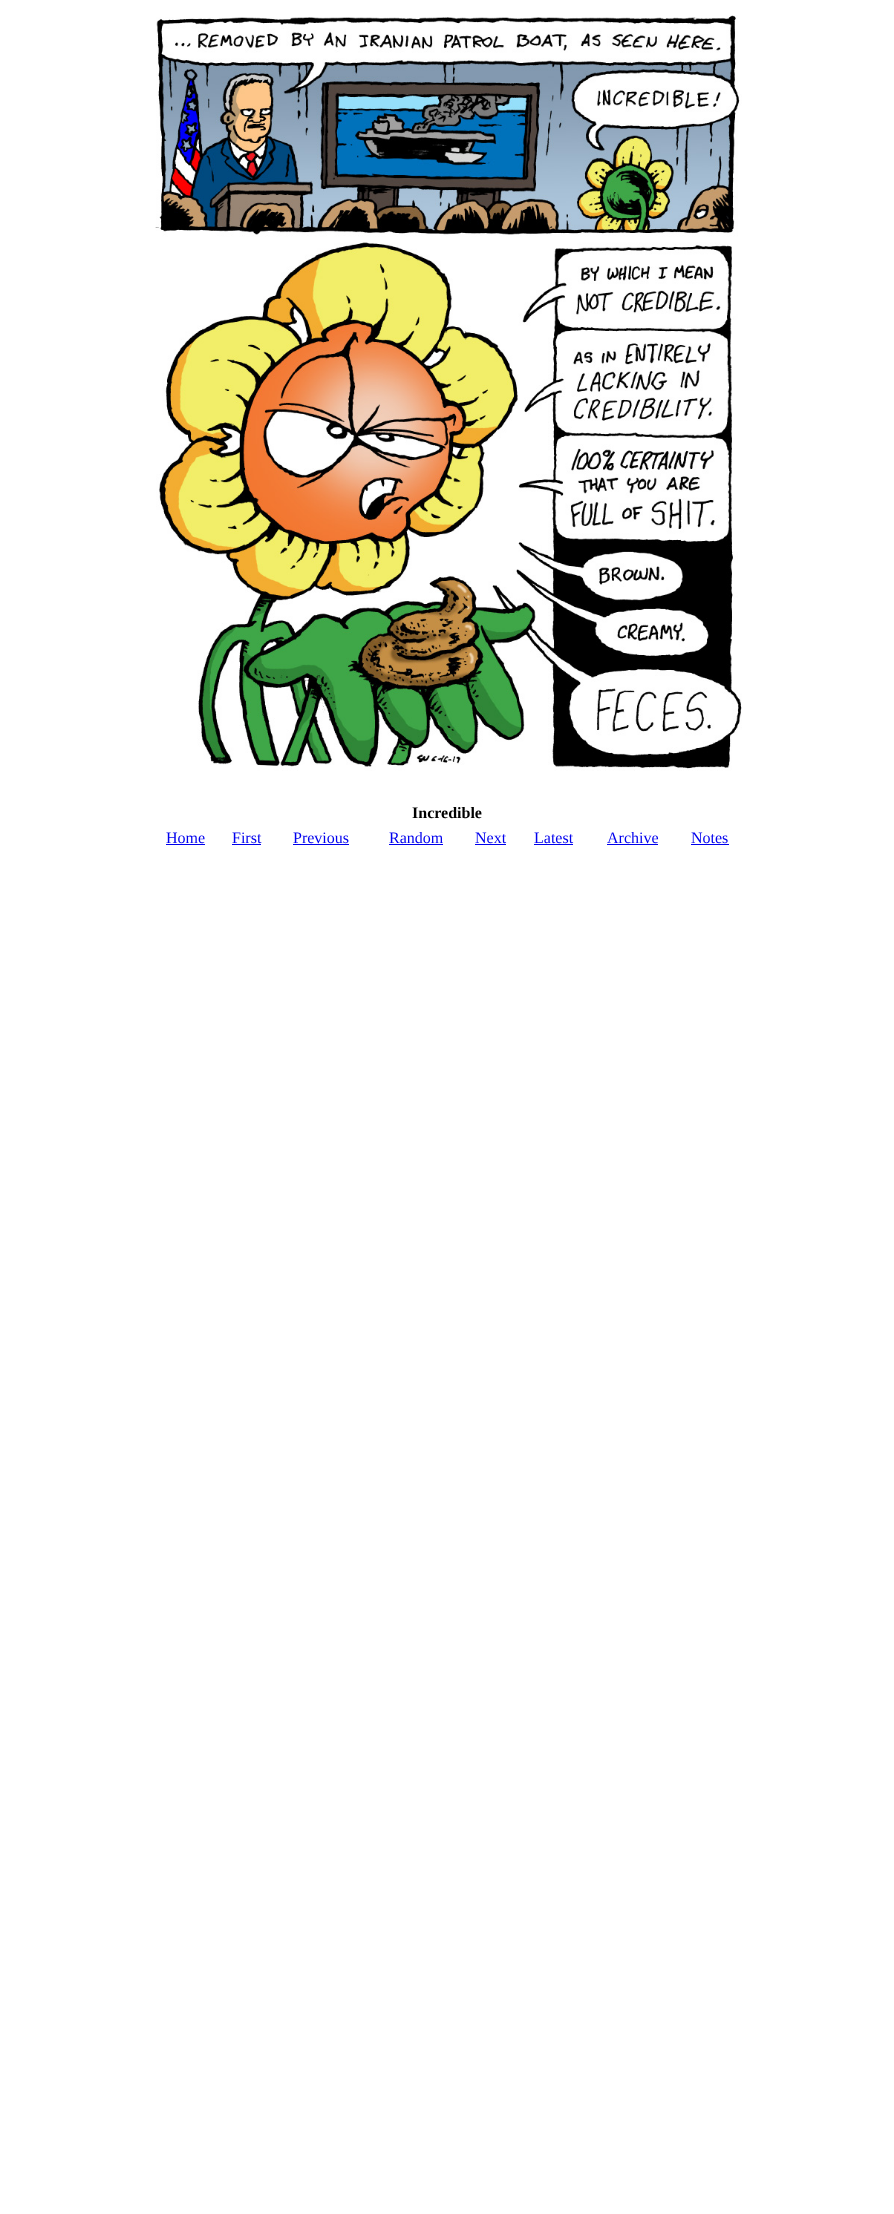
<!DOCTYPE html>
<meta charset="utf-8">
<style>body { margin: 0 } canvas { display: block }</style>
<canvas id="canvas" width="894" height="2214"></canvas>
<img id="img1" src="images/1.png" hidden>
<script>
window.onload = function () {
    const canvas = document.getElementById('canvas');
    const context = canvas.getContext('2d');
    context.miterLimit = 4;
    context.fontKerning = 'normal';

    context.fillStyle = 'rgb(255, 255, 255)';
    context.fillRect(0, 0, 894, 2214);
    context.drawImage(document.getElementById('img1'), 155, 15, 587, 756);
    context.fillStyle = 'rgb(0, 0, 238)';
    context.fillRect(166, 844, 39, 1);
    context.fillRect(232, 844, 29, 1);
    context.fillRect(293, 844, 56, 1);
    context.fillRect(389, 844, 54, 1);
    context.fillRect(475, 844, 31, 1);
    context.fillRect(534, 844, 39, 1);
    context.fillRect(607, 844, 51, 1);
    context.fillRect(691, 844, 38, 1);
    context.font = 'bold 16px Liberation Serif';
    context.fillStyle = 'rgb(0, 0, 0)';
    context.fillText('Incredible', 412, 818);
    context.font = '16px Liberation Serif';
    context.fillStyle = 'rgb(0, 0, 238)';
    context.fillText('Home', 166, 843);
    context.fillText('First', 232, 843);
    context.fillText('Previous', 293, 843);
    context.fillText('Random', 389, 843);
    context.fillText('Next', 475, 843);
    context.fillText('Latest', 534, 843);
    context.fillText('Archive', 607, 843);
    context.fillText('Notes', 691, 843);
};
</script>
